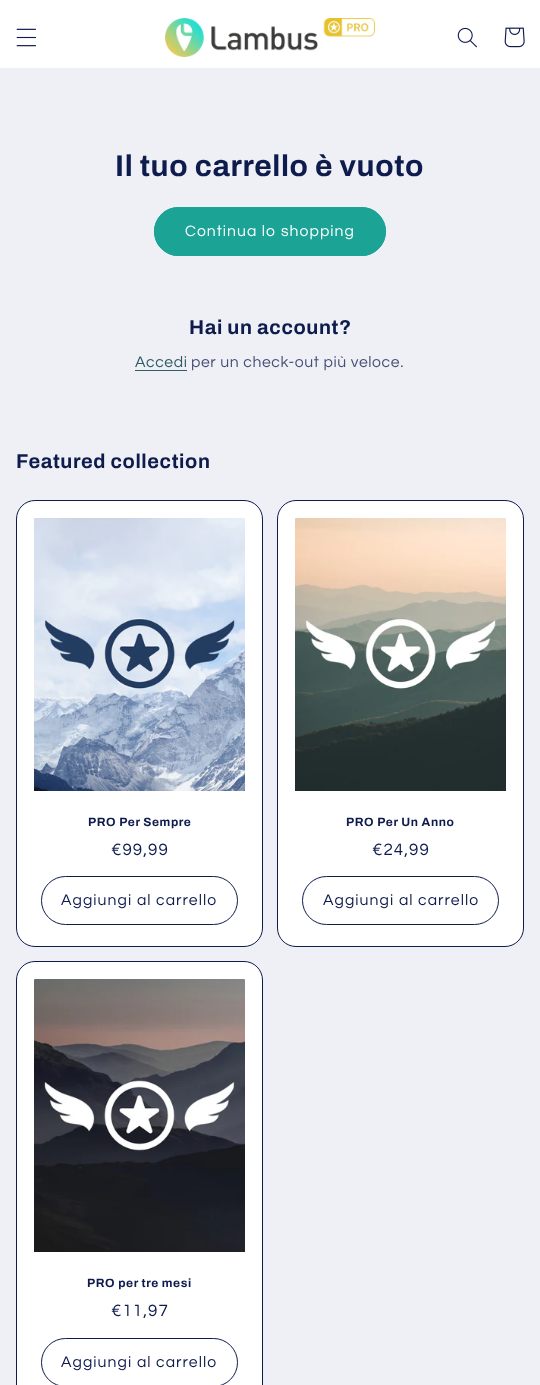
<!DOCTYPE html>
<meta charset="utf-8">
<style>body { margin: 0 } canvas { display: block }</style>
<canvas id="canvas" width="540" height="1385"></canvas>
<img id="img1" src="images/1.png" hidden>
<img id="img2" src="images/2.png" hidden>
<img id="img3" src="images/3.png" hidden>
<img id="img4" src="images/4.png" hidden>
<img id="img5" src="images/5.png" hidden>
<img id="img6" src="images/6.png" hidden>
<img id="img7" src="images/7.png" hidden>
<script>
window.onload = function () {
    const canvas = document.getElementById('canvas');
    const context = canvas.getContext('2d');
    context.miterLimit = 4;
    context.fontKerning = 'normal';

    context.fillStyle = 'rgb(239, 240, 245)';
    context.fillRect(0, 0, 540, 1385);
    context.fillStyle = 'rgb(255, 255, 255)';
    context.fillRect(0, 0, 540, 68);
    context.drawImage(document.getElementById('img1'), 16, 28, 20, 19);
    context.drawImage(document.getElementById('img2'), 165, 18, 210, 39);
    context.drawImage(document.getElementById('img3'), 457, 27, 20, 21);
    context.drawImage(document.getElementById('img4'), 504, 27, 21, 21);
    context.fillStyle = 'rgb(27, 163, 150)';
    context.beginPath();
    context.roundRect(154, 207, 232, 49, 24.5);
    context.fill();
    context.beginPath();
    context.roundRect(154.5, 207.5, 231, 48, 24);
    context.strokeStyle = 'rgb(27, 163, 150)';
    context.stroke();
    context.fillStyle = 'rgb(48, 92, 102)';
    context.fillRect(135, 370, 52, 1);
    context.fillStyle = 'rgb(255, 255, 255)';
    context.beginPath();
    context.roundRect(16.5, 500.5, 246, 446, 18.5);
    context.fill();
    context.strokeStyle = 'rgb(14, 27, 77)';
    context.stroke();
    context.drawImage(document.getElementById('img5'), 34, 518, 211, 273);
    context.beginPath();
    context.roundRect(41.5, 876.5, 196, 48, 24);
    context.stroke();
    context.beginPath();
    context.roundRect(277.5, 500.5, 246, 446, 18.5);
    context.fill();
    context.stroke();
    context.drawImage(document.getElementById('img6'), 295, 518, 211, 273);
    context.beginPath();
    context.roundRect(302.5, 876.5, 196, 48, 24);
    context.stroke();
    context.beginPath();
    context.roundRect(16.5, 961.5, 246, 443, 18.5);
    context.fill();
    context.stroke();
    context.drawImage(document.getElementById('img7'), 34, 979, 211, 273);
    context.beginPath();
    context.roundRect(41.5, 1338.5, 196, 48, 24);
    context.stroke();
    context.letterSpacing = '0.6px';
    context.font = 'bold 30px Archivo';
    context.fillStyle = 'rgb(14, 27, 77)';
    context.fillText('Il tuo carrello è vuoto', 115, 176);
    context.letterSpacing = '1.05px';
    context.font = '15.75px Questrial';
    context.fillStyle = 'rgb(255, 255, 255)';
    context.fillText('Continua lo shopping', 185, 236);
    context.letterSpacing = '0.6px';
    context.font = 'bold 20px Archivo';
    context.fillStyle = 'rgb(14, 27, 77)';
    context.fillText('Hai un account?', 189, 334);
    context.font = '15.75px Questrial';
    context.fillStyle = 'rgb(48, 92, 102)';
    context.fillText('Accedi', 135, 367);
    context.fillStyle = 'rgb(70, 80, 119)';
    context.fillText('per un check-out più veloce.', 191, 367);
    context.font = 'bold 20px Archivo';
    context.fillStyle = 'rgb(14, 27, 77)';
    context.fillText('Featured collection', 16, 468);
    context.font = 'bold 12px Archivo';
    context.fillText('PRO Per Sempre', 88, 826);
    context.letterSpacing = '1.05px';
    context.font = '17px Questrial';
    context.fillText('€99,99', 111, 855);
    context.font = '15.75px Questrial';
    context.fillText('Aggiungi al carrello', 61, 905);
    context.letterSpacing = '0.6px';
    context.font = 'bold 12px Archivo';
    context.fillText('PRO Per Un Anno', 346, 826);
    context.letterSpacing = '1.05px';
    context.font = '17px Questrial';
    context.fillText('€24,99', 372, 855);
    context.font = '15.75px Questrial';
    context.fillText('Aggiungi al carrello', 323, 905);
    context.letterSpacing = '0.6px';
    context.font = 'bold 12px Archivo';
    context.fillText('PRO per tre mesi', 87, 1287);
    context.letterSpacing = '1.05px';
    context.font = '17px Questrial';
    context.fillText('€11,97', 111, 1316);
    context.font = '15.75px Questrial';
    context.fillText('Aggiungi al carrello', 61, 1367);
};
</script>
